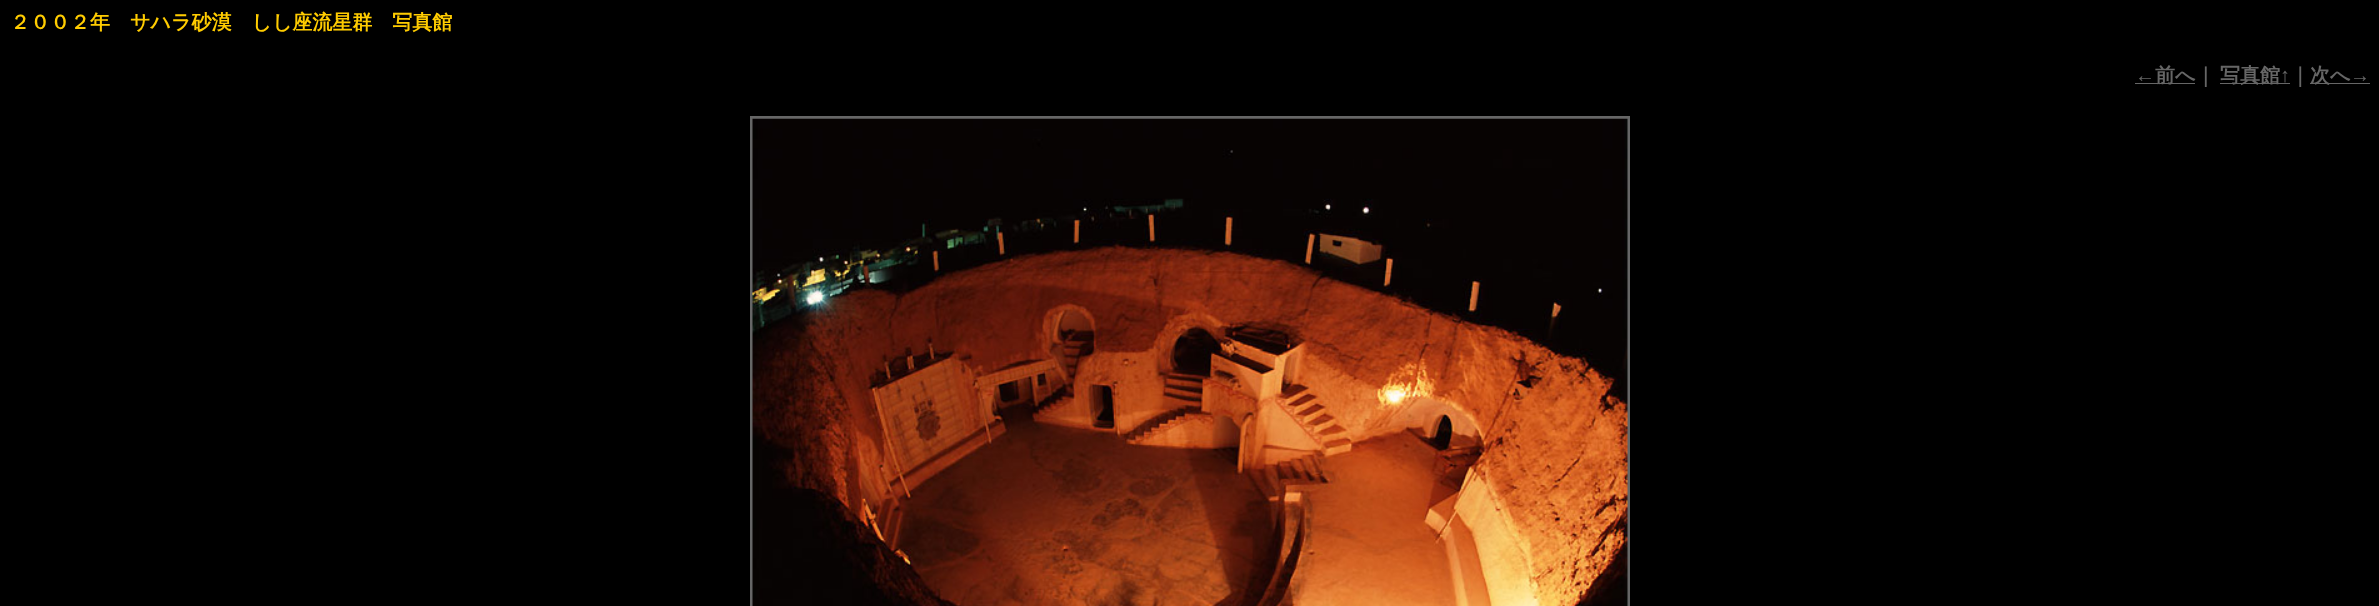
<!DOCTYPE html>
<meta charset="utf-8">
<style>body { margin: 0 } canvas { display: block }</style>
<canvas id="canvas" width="2379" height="606"></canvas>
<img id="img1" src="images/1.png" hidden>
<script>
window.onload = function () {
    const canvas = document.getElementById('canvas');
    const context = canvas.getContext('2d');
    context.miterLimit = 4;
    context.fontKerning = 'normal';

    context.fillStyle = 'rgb(0, 0, 0)';
    context.fillRect(0, 0, 2379, 606);
    context.fillStyle = 'rgb(102, 102, 102)';
    context.fillRect(2135, 83, 60, 1);
    context.fillRect(2220, 83, 70, 1);
    context.fillRect(2310, 83, 60, 1);
    context.strokeStyle = 'rgb(102, 102, 102)';
    context.lineWidth = 3;
    context.strokeRect(751.5, 117.5, 877, 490);
    context.drawImage(document.getElementById('img1'), 752, 118, 876, 488);
    context.font = 'bold 20px WenQuanYi Zen Hei';
    context.fillStyle = 'rgb(255, 204, 0)';
    context.fillText('２００２年　サハラ砂漠　しし座流星群　写真館', 10, 29);
    context.font = 'bold 20px Liberation Serif';
    context.fillStyle = 'rgb(102, 102, 102)';
    context.fillText('←', 2135, 82);
    context.font = 'bold 20px WenQuanYi Zen Hei';
    context.fillText('前へ｜', 2155, 82);
    context.fillText('写真館', 2220, 82);
    context.font = 'bold 20px Liberation Serif';
    context.fillText('↑', 2280, 82);
    context.font = 'bold 20px WenQuanYi Zen Hei';
    context.fillText('｜', 2290, 82);
    context.fillText('次へ', 2310, 82);
    context.font = 'bold 20px Liberation Serif';
    context.fillText('→', 2350, 82);
};
</script>
